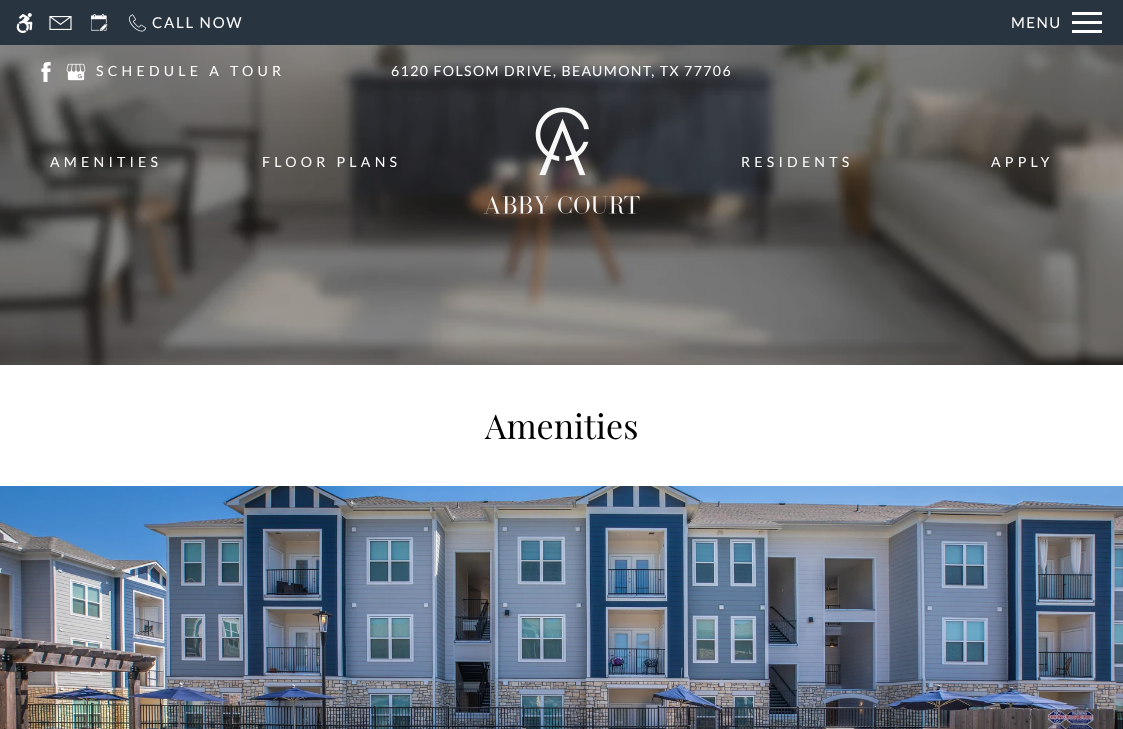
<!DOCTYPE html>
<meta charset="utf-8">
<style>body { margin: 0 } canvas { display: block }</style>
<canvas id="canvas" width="1123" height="729"></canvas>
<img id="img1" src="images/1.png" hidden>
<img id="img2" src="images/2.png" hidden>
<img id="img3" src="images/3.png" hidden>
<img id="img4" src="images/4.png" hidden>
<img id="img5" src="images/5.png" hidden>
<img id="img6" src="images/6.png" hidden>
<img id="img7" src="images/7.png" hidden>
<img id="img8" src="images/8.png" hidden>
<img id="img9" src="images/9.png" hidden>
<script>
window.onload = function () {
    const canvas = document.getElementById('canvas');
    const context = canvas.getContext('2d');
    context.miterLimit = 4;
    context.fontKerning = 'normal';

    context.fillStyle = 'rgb(255, 255, 255)';
    context.fillRect(0, 0, 1123, 729);
    context.fillStyle = 'rgb(41, 52, 65)';
    context.fillRect(0, 0, 1123, 45);
    context.drawImage(document.getElementById('img1'), 16, 13, 17, 20);
    context.drawImage(document.getElementById('img2'), 49, 16, 23, 14);
    context.drawImage(document.getElementById('img3'), 91, 14, 17, 17);
    context.drawImage(document.getElementById('img4'), 129, 14, 17, 18);
    context.fillStyle = 'rgb(255, 255, 255)';
    context.fillRect(1072, 12, 30, 3);
    context.fillRect(1072, 21, 30, 3);
    context.fillRect(1072, 30, 30, 3);
    context.drawImage(document.getElementById('img5'), 0, 45, 1123, 320);
    context.drawImage(document.getElementById('img6'), 41, 62, 10, 20);
    context.drawImage(document.getElementById('img7'), 66, 63, 20, 18);
    context.drawImage(document.getElementById('img8'), 483, 107, 157, 107);
    context.drawImage(document.getElementById('img9'), 0, 486, 1123, 243);
    context.letterSpacing = '1.75px';
    context.font = '15px Lato';
    context.fillText('CALL NOW', 152, 28);
    context.letterSpacing = '1.5px';
    context.fillText('MENU', 1011, 28);
    context.letterSpacing = '4.25px';
    context.font = '14.1px Lato';
    context.fillText('SCHEDULE A TOUR', 96, 76);
    context.letterSpacing = '1.4px';
    context.fillText('6120 FOLSOM DRIVE, BEAUMONT, TX 77706', 391, 76);
    context.letterSpacing = '4.25px';
    context.fillText('AMENITIES', 50, 167);
    context.fillText('FLOOR PLANS', 262, 167);
    context.fillText('RESIDENTS', 741, 167);
    context.fillText('APPLY', 991, 167);
    context.letterSpacing = '0px';
    context.font = '34px Playfair Display';
    context.fillStyle = 'rgb(0, 0, 0)';
    context.fillText('Amenities', 485, 439);
};
</script>
